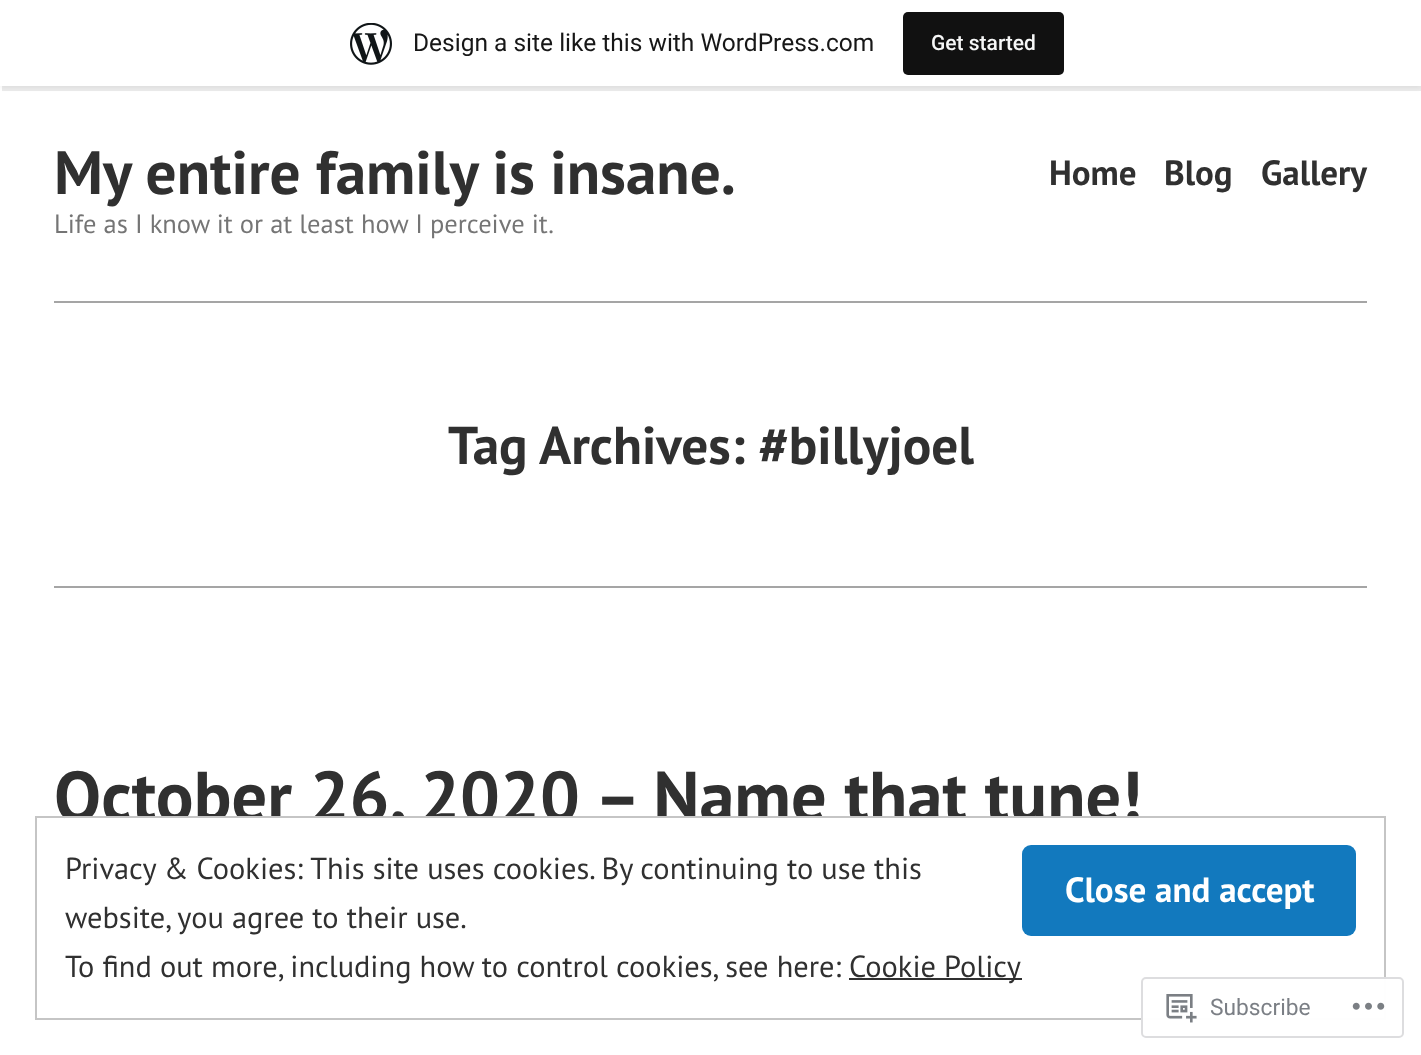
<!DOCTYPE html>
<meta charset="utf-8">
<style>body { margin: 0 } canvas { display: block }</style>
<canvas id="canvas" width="1421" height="1055"></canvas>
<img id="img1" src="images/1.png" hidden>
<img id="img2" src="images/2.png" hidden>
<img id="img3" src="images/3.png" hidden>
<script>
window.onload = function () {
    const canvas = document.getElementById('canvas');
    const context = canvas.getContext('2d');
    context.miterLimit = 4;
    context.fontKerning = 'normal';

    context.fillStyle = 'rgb(255, 255, 255)';
    context.fillRect(0, 0, 1421, 1055);
    context.fillStyle = 'rgba(0, 0, 0, 0.05)';
    context.filter = 'blur(2px)';
    context.beginPath();
    context.rect(0, 2, 1421, 86);
    context.fill();
    context.filter = 'none';
    context.fillStyle = 'rgba(0, 0, 0, 0.08)';
    context.beginPath();
    context.moveTo(2, 86);
    context.lineTo(2, 91);
    context.lineTo(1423, 91);
    context.lineTo(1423, 5);
    context.lineTo(1421, 5);
    context.lineTo(1421, 86);
    context.closePath();
    context.fill();
    context.fillStyle = 'rgb(255, 255, 255)';
    context.fillRect(0, 0, 1421, 86);
    context.drawImage(document.getElementById('img1'), 350, 23, 42, 42);
    context.fillStyle = 'rgb(17, 17, 17)';
    context.beginPath();
    context.roundRect(903, 12, 161, 63, 5);
    context.fill();
    context.fillStyle = 'rgb(165, 165, 165)';
    context.fillRect(54, 301, 1313, 2);
    context.fillRect(54, 586, 1313, 2);
    context.font = '24.5px Roboto';
    context.fillStyle = 'rgb(23, 23, 23)';
    context.fillText('Design a site like this with WordPress.com', 413, 51);
    context.font = '500 21px Roboto';
    context.fillStyle = 'rgb(246, 247, 247)';
    context.fillText('Get started', 931, 50);
    context.font = 'bold 61.25px PT Sans';
    context.fillStyle = 'rgb(48, 48, 48)';
    context.fillText('My entire family is insane.', 54, 194);
    context.font = 'bold 35px PT Sans';
    context.fillText('Home', 1049, 185);
    context.fillText('Blog', 1164, 185);
    context.fillText('Gallery', 1261, 185);
    context.font = '26.5px PT Sans';
    context.fillStyle = 'rgb(117, 117, 117)';
    context.fillText('Life as I know it or at least how I perceive it.', 54, 233);
    context.font = 'bold 53.25px PT Sans';
    context.fillStyle = 'rgb(48, 48, 48)';
    context.fillText('Tag Archives: #billyjoel', 448, 464);
    context.font = 'bold 70.4px PT Sans';
    context.fillText('October 26, 2020 – Name that tune!', 54, 821);
    context.fillStyle = 'rgb(255, 255, 255)';
    context.fillRect(65, 818, 1074, 14);
    context.strokeStyle = 'rgb(197, 197, 197)';
    context.lineWidth = 2;
    context.strokeRect(36, 817, 1349, 202);
    context.font = '30.4px PT Sans';
    context.fillStyle = 'rgb(48, 48, 48)';
    context.fillText('Privacy & Cookies: This site uses cookies. By continuing to use this', 65, 879);
    context.fillStyle = 'rgb(18, 121, 190)';
    context.beginPath();
    context.roundRect(1022, 845, 334, 91, 9);
    context.fill();
    context.font = 'bold 35px PT Sans';
    context.fillStyle = 'rgb(255, 255, 255)';
    context.fillText('Close and accept', 1065, 902);
    context.font = '30.4px PT Sans';
    context.fillStyle = 'rgb(48, 48, 48)';
    context.fillText('website, you agree to their use.', 65, 928);
    context.fillText('To find out more, including how to control cookies, see here:', 65, 977);
    context.fillRect(849, 978, 173, 2);
    context.fillText('Cookie Policy', 849, 977);
    context.fillStyle = 'rgba(255, 255, 255, 0.98)';
    context.beginPath();
    context.roundRect(1142, 978, 261, 59, 4);
    context.fill();
    context.strokeStyle = 'rgb(221, 221, 223)';
    context.stroke();
    context.drawImage(document.getElementById('img2'), 1166, 994, 31, 29);
    context.font = '22.75px Roboto';
    context.fillStyle = 'rgb(123, 127, 133)';
    context.fillText('Subscribe', 1210, 1015);
    context.drawImage(document.getElementById('img3'), 1352, 1002, 33, 8);
};
</script>
